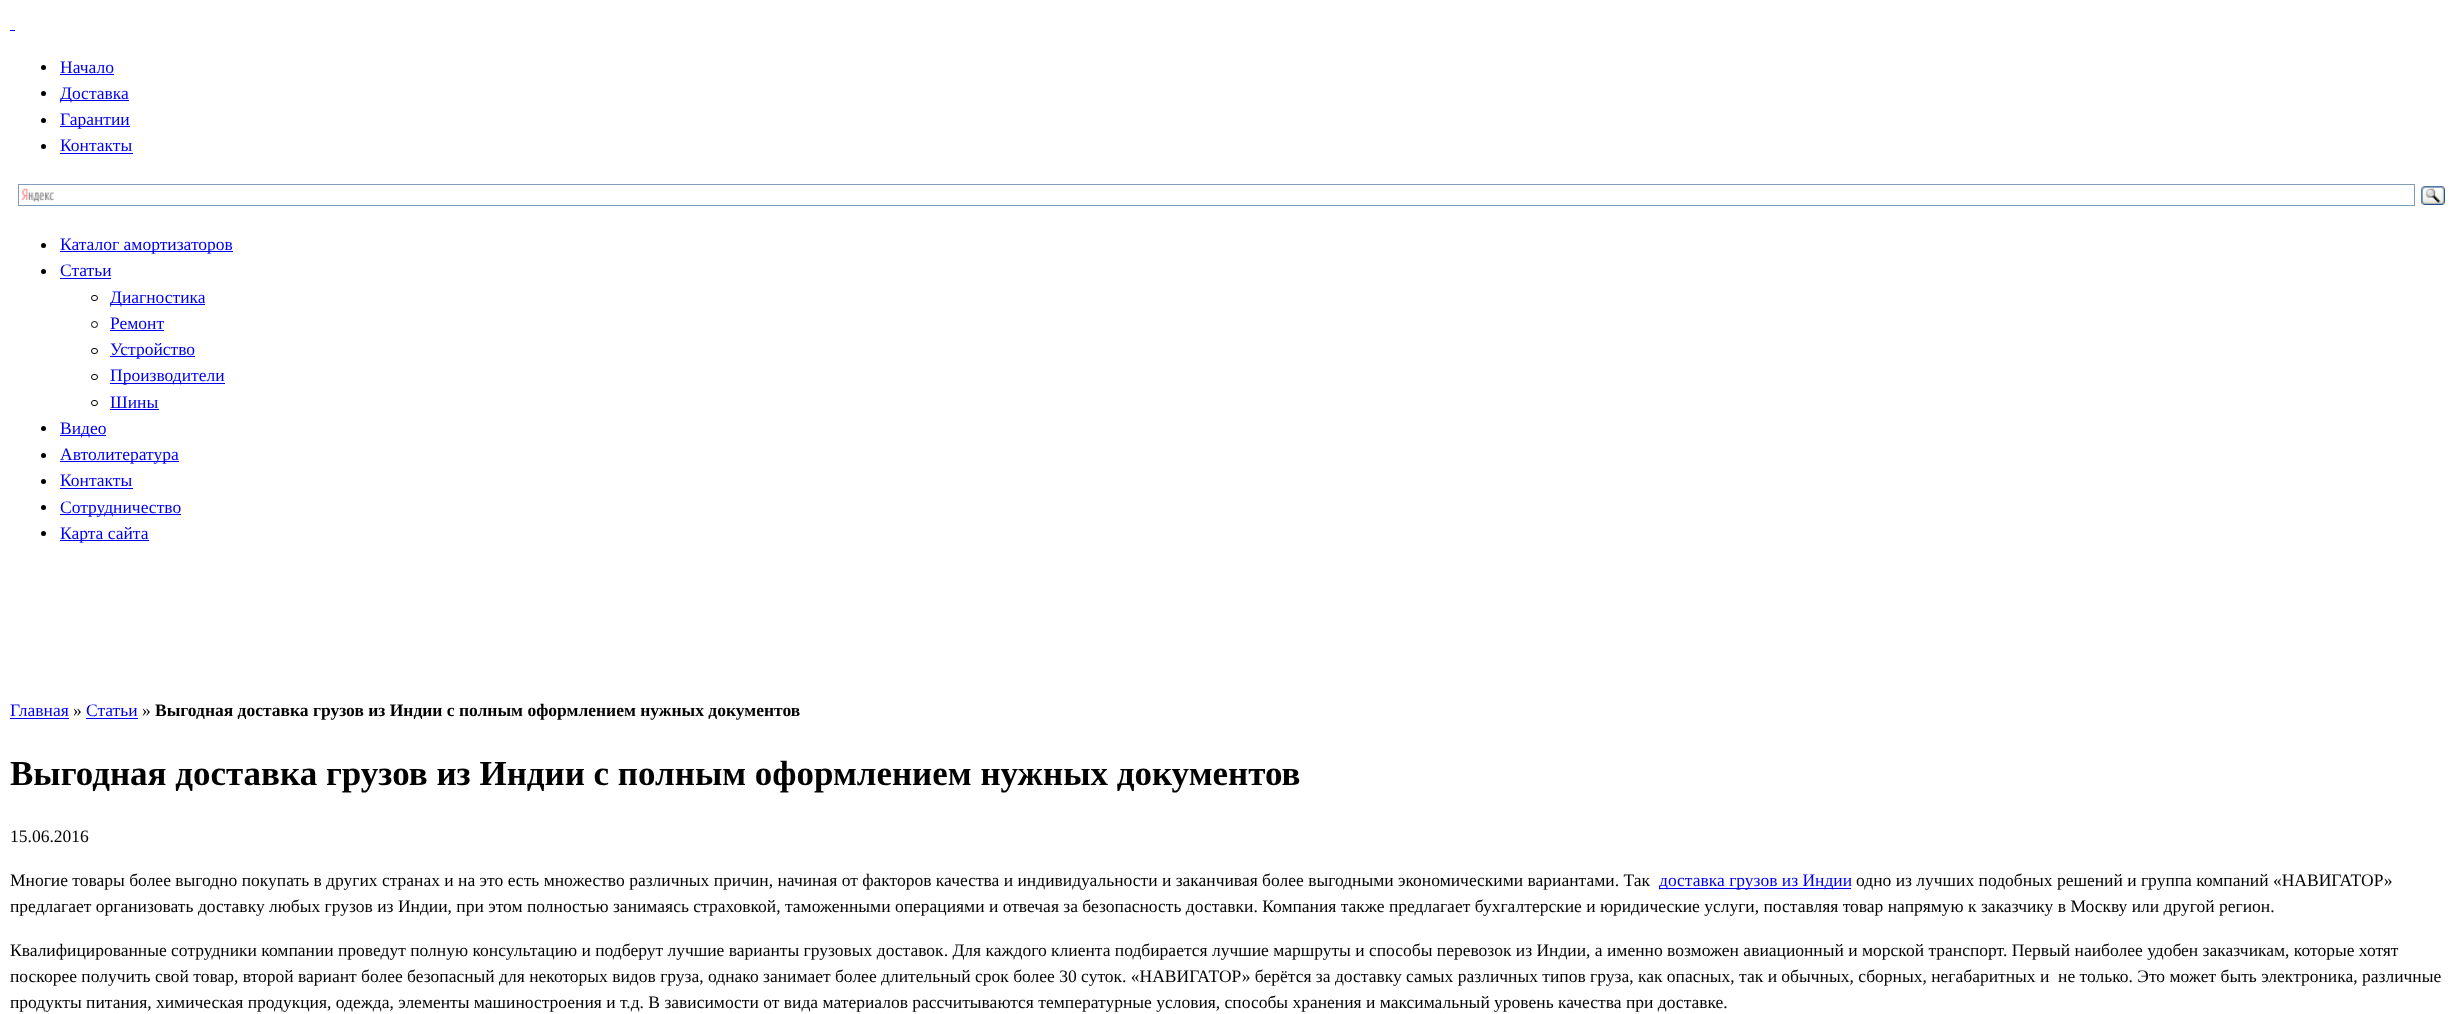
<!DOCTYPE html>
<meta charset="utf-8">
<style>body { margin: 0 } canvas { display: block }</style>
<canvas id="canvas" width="2462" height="1014"></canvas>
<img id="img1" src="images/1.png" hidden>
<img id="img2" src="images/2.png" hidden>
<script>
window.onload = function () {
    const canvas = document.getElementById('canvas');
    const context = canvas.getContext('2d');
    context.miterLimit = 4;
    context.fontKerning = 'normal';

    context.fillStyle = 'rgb(255, 255, 255)';
    context.fillRect(0, 0, 2462, 1014);
    context.fillStyle = 'rgb(0, 0, 238)';
    context.fillRect(10, 30, 5, 1);
    context.fillStyle = 'rgb(0, 0, 0)';
    context.beginPath();
    context.arc(43.5, 67.5, 2.5, 0, 2 * Math.PI);
    context.fill();
    context.fillStyle = 'rgb(0, 0, 238)';
    context.fillRect(60, 74, 54, 1);
    context.fillStyle = 'rgb(0, 0, 0)';
    context.beginPath();
    context.arc(43.5, 93.5, 2.5, 0, 2 * Math.PI);
    context.fill();
    context.fillStyle = 'rgb(0, 0, 238)';
    context.fillRect(60, 100, 69, 1);
    context.fillStyle = 'rgb(0, 0, 0)';
    context.beginPath();
    context.arc(43.5, 120.5, 2.5, 0, 2 * Math.PI);
    context.fill();
    context.fillStyle = 'rgb(0, 0, 238)';
    context.fillRect(60, 126, 70, 1);
    context.fillStyle = 'rgb(0, 0, 0)';
    context.beginPath();
    context.arc(43.5, 146.5, 2.5, 0, 2 * Math.PI);
    context.fill();
    context.fillStyle = 'rgb(0, 0, 238)';
    context.fillRect(60, 153, 73, 1);
    context.drawImage(document.getElementById('img1'), 21, 188, 33, 15);
    context.strokeStyle = 'rgb(127, 157, 185)';
    context.strokeRect(18.5, 184.5, 2396, 21);
    context.drawImage(document.getElementById('img2'), 2421, 186, 24, 19);
    context.fillStyle = 'rgb(0, 0, 0)';
    context.beginPath();
    context.arc(43.5, 245.5, 2.5, 0, 2 * Math.PI);
    context.fill();
    context.fillStyle = 'rgb(0, 0, 238)';
    context.fillRect(60, 251, 173, 1);
    context.fillStyle = 'rgb(0, 0, 0)';
    context.beginPath();
    context.arc(43.5, 271.5, 2.5, 0, 2 * Math.PI);
    context.fill();
    context.fillStyle = 'rgb(0, 0, 238)';
    context.fillRect(60, 278, 51, 1);
    context.beginPath();
    context.roundRect(91.5, 295.5, 6, 5, 2.5);
    context.strokeStyle = 'rgb(0, 0, 0)';
    context.stroke();
    context.fillRect(110, 304, 95, 1);
    context.beginPath();
    context.arc(94.5, 324.5, 3, 0, 2 * Math.PI);
    context.stroke();
    context.fillRect(110, 330, 54, 1);
    context.beginPath();
    context.roundRect(91.5, 348.5, 6, 5, 2.5);
    context.stroke();
    context.fillRect(110, 356, 85, 1);
    context.beginPath();
    context.roundRect(91.5, 374.5, 6, 5, 2.5);
    context.stroke();
    context.fillRect(110, 383, 115, 1);
    context.beginPath();
    context.roundRect(91.5, 400.5, 6, 5, 2.5);
    context.stroke();
    context.fillRect(110, 409, 49, 1);
    context.fillStyle = 'rgb(0, 0, 0)';
    context.beginPath();
    context.arc(43.5, 428.5, 2.5, 0, 2 * Math.PI);
    context.fill();
    context.fillStyle = 'rgb(0, 0, 238)';
    context.fillRect(60, 435, 46, 1);
    context.fillStyle = 'rgb(0, 0, 0)';
    context.beginPath();
    context.arc(43.5, 455.5, 2.5, 0, 2 * Math.PI);
    context.fill();
    context.fillStyle = 'rgb(0, 0, 238)';
    context.fillRect(60, 461, 119, 1);
    context.fillStyle = 'rgb(0, 0, 0)';
    context.beginPath();
    context.arc(43.5, 481.5, 2.5, 0, 2 * Math.PI);
    context.fill();
    context.fillStyle = 'rgb(0, 0, 238)';
    context.fillRect(60, 488, 73, 1);
    context.fillStyle = 'rgb(0, 0, 0)';
    context.beginPath();
    context.arc(43.5, 507.5, 2.5, 0, 2 * Math.PI);
    context.fill();
    context.fillStyle = 'rgb(0, 0, 238)';
    context.fillRect(60, 514, 121, 1);
    context.fillStyle = 'rgb(0, 0, 0)';
    context.beginPath();
    context.arc(43.5, 533.5, 2.5, 0, 2 * Math.PI);
    context.fill();
    context.fillStyle = 'rgb(0, 0, 238)';
    context.fillRect(60, 540, 89, 1);
    context.fillRect(10, 718, 59, 1);
    context.fillRect(86, 718, 52, 1);
    context.fillRect(1659, 888, 192, 1);
    context.font = '17.5px Liberation Serif';
    context.fillText('Начало', 60, 73);
    context.fillText('Доставка', 60, 99);
    context.fillText('Гарантии', 60, 125);
    context.fillText('Контакты', 60, 151);
    context.fillText('Каталог амортизаторов', 60, 250);
    context.fillText('Статьи', 60, 276);
    context.fillText('Диагностика', 110, 303);
    context.fillText('Ремонт', 110, 329);
    context.fillText('Устройство', 110, 355);
    context.fillText('Производители', 110, 381);
    context.fillText('Шины', 110, 408);
    context.fillText('Видео', 60, 434);
    context.fillText('Автолитература', 60, 460);
    context.fillText('Контакты', 60, 486);
    context.fillText('Сотрудничество', 60, 513);
    context.fillText('Карта сайта', 60, 539);
    context.fillText('Главная', 10, 716);
    context.fillStyle = 'rgb(0, 0, 0)';
    context.fillText('»', 73, 716);
    context.fillStyle = 'rgb(0, 0, 238)';
    context.fillText('Статьи', 86, 716);
    context.fillStyle = 'rgb(0, 0, 0)';
    context.fillText('»', 142, 716);
    context.font = 'bold 17.5px Liberation Serif';
    context.fillText('Выгодная доставка грузов из Индии с полным оформлением нужных документов', 155, 716);
    context.font = 'bold 35px Liberation Serif';
    context.fillText('Выгодная доставка грузов из Индии с полным оформлением нужных документов', 10, 785);
    context.font = '17.5px Liberation Serif';
    context.fillText('15.06.2016', 10, 842);
    context.fillText('Многие товары более выгодно покупать в других странах и на это есть множество различных причин, начиная от факторов качества и индивидуальности и заканчивая более выгодными экономическими вариантами. Так', 10, 886);
    context.fillStyle = 'rgb(0, 0, 238)';
    context.fillText('доставка грузов из Индии', 1659, 886);
    context.fillStyle = 'rgb(0, 0, 0)';
    context.fillText('одно из лучших подобных решений и группа компаний «НАВИГАТОР»', 1856, 886);
    context.fillText('предлагает организовать доставку любых грузов из Индии, при этом полностью занимаясь страховкой, таможенными операциями и отвечая за безопасность доставки. Компания также предлагает бухгалтерские и юридические услуги, поставляя товар напрямую к заказчику в Москву или другой регион.', 10, 912);
    context.fillText('Квалифицированные сотрудники компании проведут полную консультацию и подберут лучшие варианты грузовых доставок. Для каждого клиента подбирается лучшие маршруты и способы перевозок из Индии, а именно возможен авиационный и морской транспорт. Первый наиболее удобен заказчикам, которые хотят', 10, 956);
    context.fillText('поскорее получить свой товар, второй вариант более безопасный для некоторых видов груза, однако занимает более длительный срок более 30 суток. «НАВИГАТОР» берётся за доставку самых различных типов груза, как опасных, так и обычных, сборных, негабаритных и  не только. Это может быть электроника, различные', 10, 982);
    context.fillText('продукты питания, химическая продукция, одежда, элементы машиностроения и т.д. В зависимости от вида материалов рассчитываются температурные условия, способы хранения и максимальный уровень качества при доставке.', 10, 1008);
};
</script>
